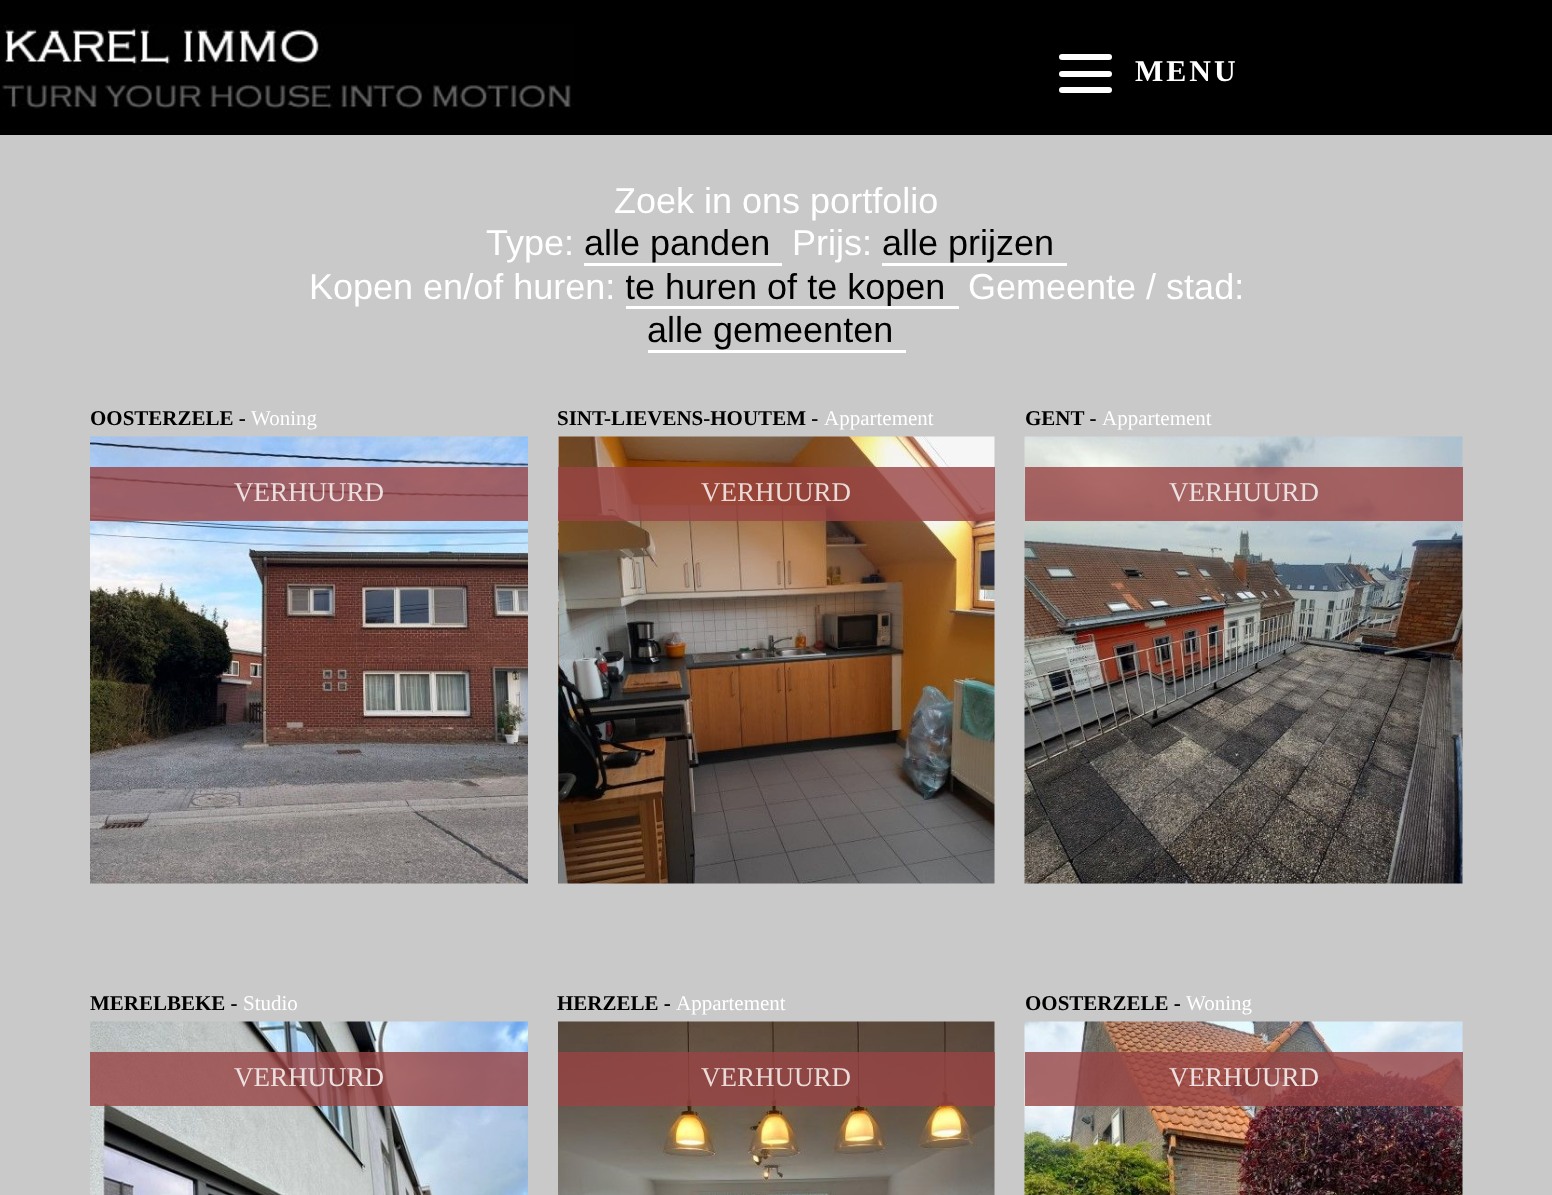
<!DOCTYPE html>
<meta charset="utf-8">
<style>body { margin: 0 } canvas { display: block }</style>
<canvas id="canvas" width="1552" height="1195"></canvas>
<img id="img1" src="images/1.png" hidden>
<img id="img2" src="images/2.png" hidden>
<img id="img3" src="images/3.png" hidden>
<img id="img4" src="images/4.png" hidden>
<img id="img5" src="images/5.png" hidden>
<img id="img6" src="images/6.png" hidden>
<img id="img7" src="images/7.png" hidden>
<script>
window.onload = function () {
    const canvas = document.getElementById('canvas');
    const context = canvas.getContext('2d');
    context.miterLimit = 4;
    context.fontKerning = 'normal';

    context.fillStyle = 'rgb(201, 201, 201)';
    context.fillRect(0, 0, 1552, 1195);
    context.fillStyle = 'rgb(0, 0, 0)';
    context.fillRect(0, 0, 1552, 135);
    context.drawImage(document.getElementById('img1'), 0, 24, 574, 85);
    context.fillStyle = 'rgb(255, 255, 255)';
    context.beginPath();
    context.roundRect(1059, 54, 53, 6, 3);
    context.fill();
    context.beginPath();
    context.roundRect(1059, 71, 53, 6, 3);
    context.fill();
    context.beginPath();
    context.roundRect(1059, 87, 53, 6, 3);
    context.fill();
    context.fillRect(584, 263, 198, 3);
    context.fillRect(882, 263, 185, 3);
    context.fillRect(626, 306, 333, 3);
    context.fillRect(648, 350, 258, 3);
    context.drawImage(document.getElementById('img2'), 90, 436, 438, 448);
    context.fillStyle = 'rgba(153, 68, 68, 0.8)';
    context.fillRect(90, 467, 438, 54);
    context.drawImage(document.getElementById('img3'), 558, 436, 437, 448);
    context.fillRect(558, 467, 437, 54);
    context.drawImage(document.getElementById('img4'), 1024, 436, 439, 448);
    context.fillRect(1025, 467, 438, 54);
    context.drawImage(document.getElementById('img5'), 90, 1021, 438, 174);
    context.fillRect(90, 1052, 438, 54);
    context.drawImage(document.getElementById('img6'), 558, 1021, 437, 174);
    context.fillRect(558, 1052, 437, 54);
    context.drawImage(document.getElementById('img7'), 1024, 1021, 439, 174);
    context.fillRect(1025, 1052, 438, 54);
    context.letterSpacing = '3px';
    context.font = 'bold 30px Liberation Serif';
    context.fillStyle = 'rgb(255, 255, 255)';
    context.fillText('MENU', 1135, 81);
    context.letterSpacing = '0px';
    context.font = '36px Liberation Sans';
    context.fillText('Zoek in ons portfolio', 614, 213);
    context.fillText('Type:', 486, 255);
    context.fillStyle = 'rgb(0, 0, 0)';
    context.fillText('alle panden', 584, 255);
    context.fillStyle = 'rgb(255, 255, 255)';
    context.fillText('Prijs:', 792, 255);
    context.fillStyle = 'rgb(0, 0, 0)';
    context.fillText('alle prijzen', 882, 255);
    context.fillStyle = 'rgb(255, 255, 255)';
    context.fillText('Kopen en/of huren:', 309, 299);
    context.save();
    context.beginPath();
    context.rect(626, 266, 333, 40);
    context.clip();
    context.fillStyle = 'rgb(0, 0, 0)';
    context.fillText('te huren of te kopen', 625, 299);
    context.restore();
    context.fillText('Gemeente / stad:', 968, 299);
    context.fillStyle = 'rgb(0, 0, 0)';
    context.fillText('alle gemeenten', 647, 342);
    context.font = 'bold 21px Liberation Serif';
    context.fillText('OOSTERZELE -', 90, 425);
    context.font = '21px Liberation Serif';
    context.fillStyle = 'rgb(255, 255, 255)';
    context.fillText('Woning', 251, 425);
    context.font = '27px Liberation Serif';
    context.fillStyle = 'rgb(235, 223, 224)';
    context.fillText('VERHUURD', 234, 501);
    context.font = 'bold 21px Liberation Serif';
    context.fillStyle = 'rgb(0, 0, 0)';
    context.fillText('SINT-LIEVENS-HOUTEM -', 557, 425);
    context.font = '21px Liberation Serif';
    context.fillStyle = 'rgb(255, 255, 255)';
    context.fillText('Appartement', 824, 425);
    context.font = '27px Liberation Serif';
    context.fillStyle = 'rgb(234, 218, 216)';
    context.fillText('VERHUURD', 701, 501);
    context.font = 'bold 21px Liberation Serif';
    context.fillStyle = 'rgb(0, 0, 0)';
    context.fillText('GENT -', 1025, 425);
    context.font = '21px Liberation Serif';
    context.fillStyle = 'rgb(255, 255, 255)';
    context.fillText('Appartement', 1102, 425);
    context.font = '27px Liberation Serif';
    context.fillStyle = 'rgb(235, 223, 224)';
    context.fillText('VERHUURD', 1169, 501);
    context.font = 'bold 21px Liberation Serif';
    context.fillStyle = 'rgb(0, 0, 0)';
    context.fillText('MERELBEKE -', 90, 1010);
    context.font = '21px Liberation Serif';
    context.fillStyle = 'rgb(255, 255, 255)';
    context.fillText('Studio', 243, 1010);
    context.font = '27px Liberation Serif';
    context.fillStyle = 'rgb(235, 223, 224)';
    context.fillText('VERHUURD', 234, 1086);
    context.font = 'bold 21px Liberation Serif';
    context.fillStyle = 'rgb(0, 0, 0)';
    context.fillText('HERZELE -', 557, 1010);
    context.font = '21px Liberation Serif';
    context.fillStyle = 'rgb(255, 255, 255)';
    context.fillText('Appartement', 676, 1010);
    context.font = '27px Liberation Serif';
    context.fillStyle = 'rgb(234, 218, 216)';
    context.fillText('VERHUURD', 701, 1086);
    context.font = 'bold 21px Liberation Serif';
    context.fillStyle = 'rgb(0, 0, 0)';
    context.fillText('OOSTERZELE -', 1025, 1010);
    context.font = '21px Liberation Serif';
    context.fillStyle = 'rgb(255, 255, 255)';
    context.fillText('Woning', 1186, 1010);
    context.font = '27px Liberation Serif';
    context.fillStyle = 'rgb(235, 223, 224)';
    context.fillText('VERHUURD', 1169, 1086);
};
</script>
